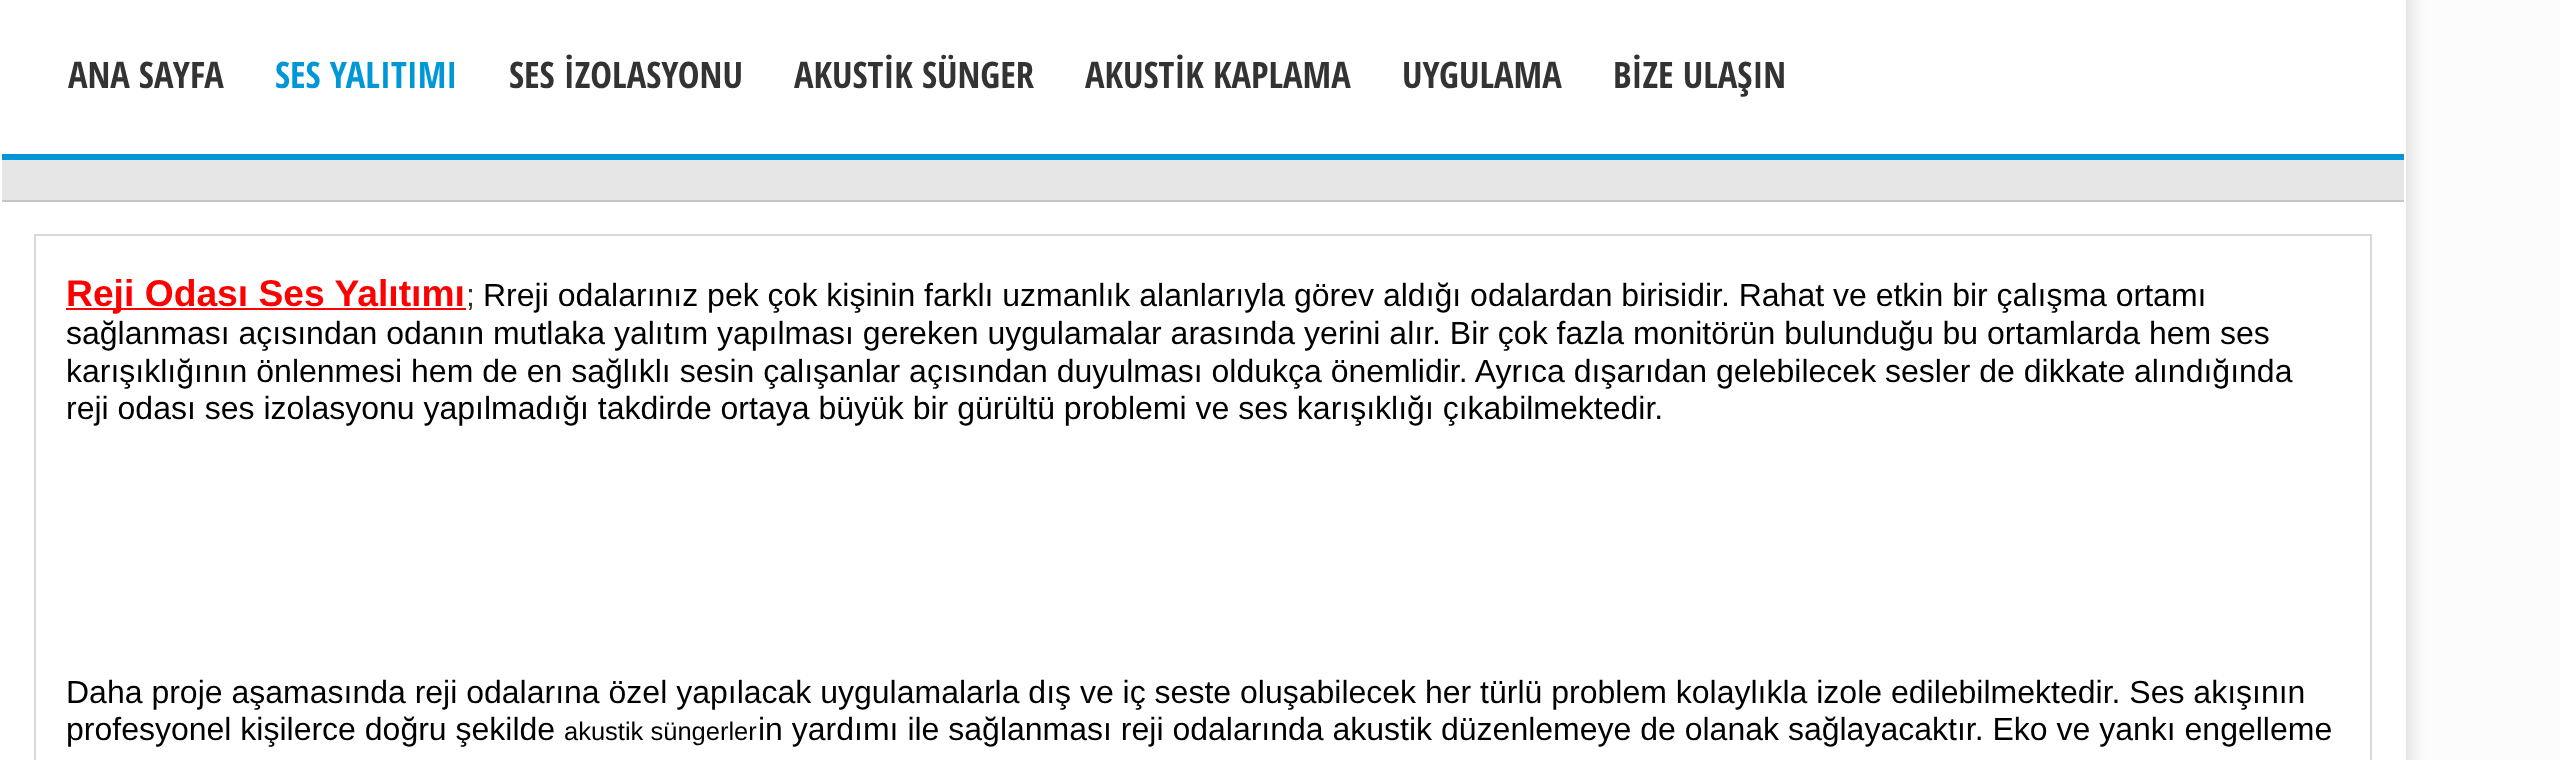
<!DOCTYPE html>
<meta charset="utf-8">
<style>body { margin: 0 } canvas { display: block }</style>
<canvas id="canvas" width="2560" height="760"></canvas>
<script>
window.onload = function () {
    const canvas = document.getElementById('canvas');
    const context = canvas.getContext('2d');
    context.miterLimit = 4;
    context.fontKerning = 'normal';

    context.fillStyle = 'rgb(252, 252, 252)';
    context.fillRect(0, 0, 2560, 760);
    context.fillStyle = 'rgba(0, 0, 0, 0.18)';
    context.filter = 'blur(11px)';
    context.beginPath();
    context.rect(0, -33, 2406, 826);
    context.fill();
    context.filter = 'none';
    context.fillStyle = 'rgb(255, 255, 255)';
    context.fillRect(0, 0, 2406, 760);
    context.fillStyle = 'rgb(0, 151, 216)';
    context.fillRect(2, 154, 2402, 6);
    context.fillStyle = 'rgb(230, 230, 230)';
    context.fillRect(2, 160, 2402, 40);
    context.fillStyle = 'rgb(196, 197, 198)';
    context.fillRect(2, 200, 2402, 2);
    context.strokeStyle = 'rgb(216, 216, 216)';
    context.lineWidth = 2;
    context.strokeRect(35, 235, 2336, 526);
    context.fillStyle = 'rgb(255, 0, 0)';
    context.fillRect(66, 308, 400, 2);
    context.font = 'bold 36.5px Open Sans Condensed';
    context.fillStyle = 'rgb(51, 51, 51)';
    context.fillText('ANA SAYFA', 68, 88);
    context.fillStyle = 'rgb(0, 151, 216)';
    context.fillText('SES YALITIMI', 275, 88);
    context.fillStyle = 'rgb(51, 51, 51)';
    context.fillText('SES İZOLASYONU', 509, 88);
    context.fillText('AKUSTİK SÜNGER', 794, 88);
    context.fillText('AKUSTİK KAPLAMA', 1085, 88);
    context.fillText('UYGULAMA', 1402, 88);
    context.fillText('BİZE ULAŞIN', 1613, 88);
    context.font = 'bold 37.25px Liberation Sans';
    context.fillStyle = 'rgb(255, 0, 0)';
    context.fillText('Reji Odası Ses Yalıtımı', 66, 306);
    context.font = '32px Liberation Sans';
    context.fillStyle = 'rgb(51, 51, 51)';
    context.fillText(';', 466, 306);
    context.fillStyle = 'rgb(0, 0, 0)';
    context.fillText('Rreji odalarınız pek çok kişinin farklı uzmanlık alanlarıyla görev aldığı odalardan birisidir. Rahat ve etkin bir çalışma ortamı', 483, 306);
    context.fillText('sağlanması açısından odanın mutlaka yalıtım yapılması gereken uygulamalar arasında yerini alır. Bir çok fazla monitörün bulunduğu bu ortamlarda hem ses', 66, 344);
    context.fillText('karışıklığının önlenmesi hem de en sağlıklı sesin çalışanlar açısından duyulması oldukça önemlidir. Ayrıca dışarıdan gelebilecek sesler de dikkate alındığında', 66, 382);
    context.fillText('reji odası ses izolasyonu yapılmadığı takdirde ortaya büyük bir gürültü problemi ve ses karışıklığı çıkabilmektedir.', 66, 419);
    context.fillText('Daha proje aşamasında reji odalarına özel yapılacak uygulamalarla dış ve iç seste oluşabilecek her türlü problem kolaylıkla izole edilebilmektedir. Ses akışının', 66, 703);
    context.fillText('profesyonel kişilerce doğru şekilde', 66, 740);
    context.font = '25.5px Liberation Sans';
    context.fillText('akustik süngerler', 564, 740);
    context.font = '32px Liberation Sans';
    context.fillText('in yardımı ile sağlanması reji odalarında akustik düzenlemeye de olanak sağlayacaktır. Eko ve yankı engelleme', 758, 740);
};
</script>
